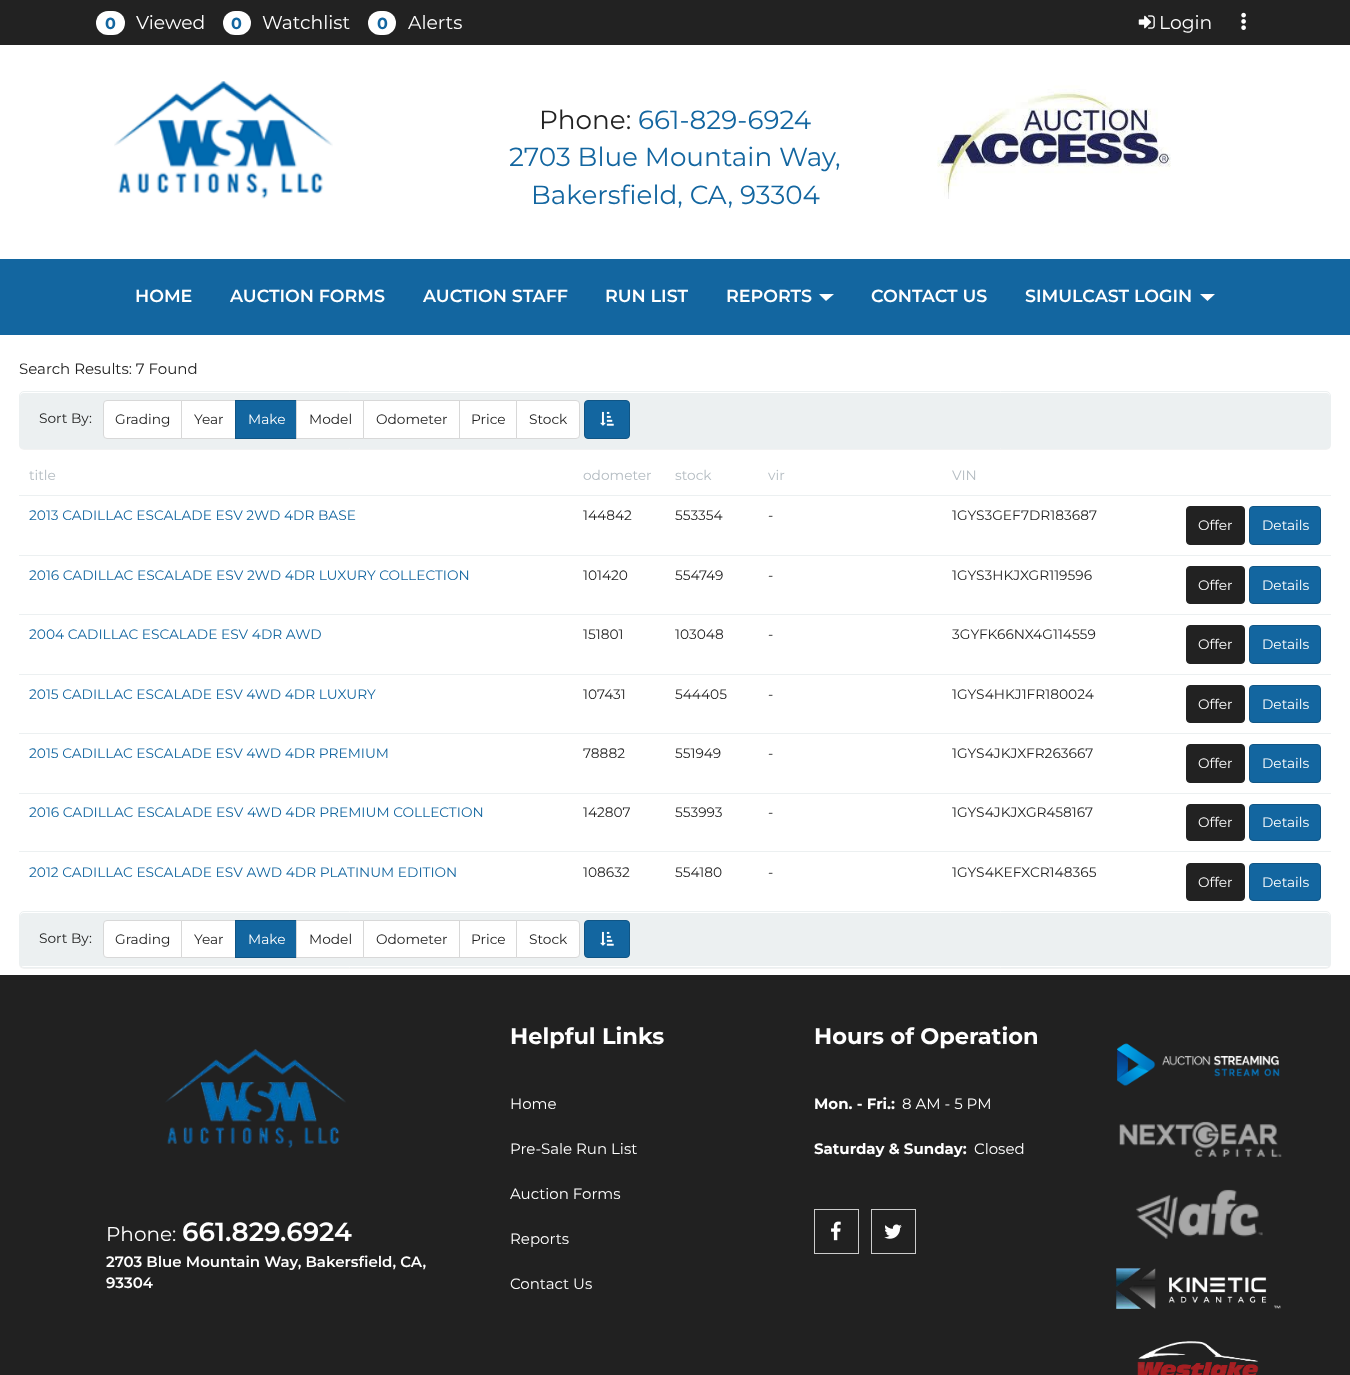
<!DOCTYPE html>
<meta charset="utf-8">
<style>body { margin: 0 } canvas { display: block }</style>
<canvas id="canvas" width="1350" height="1375"></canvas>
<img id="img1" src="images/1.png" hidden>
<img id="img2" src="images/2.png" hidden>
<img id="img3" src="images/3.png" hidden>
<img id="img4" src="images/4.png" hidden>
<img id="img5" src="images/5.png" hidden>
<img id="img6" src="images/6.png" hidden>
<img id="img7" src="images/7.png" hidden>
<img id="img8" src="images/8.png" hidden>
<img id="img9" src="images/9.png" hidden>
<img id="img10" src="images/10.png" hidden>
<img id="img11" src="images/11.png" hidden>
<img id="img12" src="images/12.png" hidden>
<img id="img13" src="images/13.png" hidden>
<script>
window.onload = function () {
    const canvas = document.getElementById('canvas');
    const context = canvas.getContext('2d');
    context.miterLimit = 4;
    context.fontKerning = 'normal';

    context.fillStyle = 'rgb(255, 255, 255)';
    context.fillRect(0, 0, 1350, 1375);
    context.fillStyle = 'rgb(34, 34, 34)';
    context.fillRect(0, 0, 1350, 45);
    context.fillStyle = 'rgb(255, 255, 255)';
    context.beginPath();
    context.roundRect(96, 11, 29, 24, 12);
    context.fill();
    context.beginPath();
    context.roundRect(223, 11, 28, 24, 12);
    context.fill();
    context.beginPath();
    context.roundRect(368, 11, 28, 24, 12);
    context.fill();
    context.drawImage(document.getElementById('img1'), 1138, 15, 17, 14);
    context.drawImage(document.getElementById('img2'), 1241, 12, 5, 18);
    context.drawImage(document.getElementById('img3'), 114, 81, 219, 118);
    context.drawImage(document.getElementById('img4'), 937, 85, 234, 114);
    context.fillStyle = 'rgb(19, 102, 160)';
    context.fillRect(0, 259, 1350, 76);
    context.fillStyle = 'rgb(255, 255, 255)';
    context.beginPath();
    context.moveTo(819, 294);
    context.lineTo(834, 294);
    context.lineTo(826, 301);
    context.closePath();
    context.fill();
    context.beginPath();
    context.moveTo(1200, 294);
    context.lineTo(1215, 294);
    context.lineTo(1207.5, 301);
    context.closePath();
    context.fill();
    context.fillStyle = 'rgba(0, 0, 0, 0.05)';
    context.filter = 'blur(0.5px)';
    context.beginPath();
    context.roundRect(19, 393, 1312, 57, 5);
    context.fill();
    context.filter = 'none';
    context.fillStyle = 'rgb(255, 255, 255)';
    context.beginPath();
    context.roundRect(19.5, 391.5, 1311, 57, 4.5);
    context.fill();
    context.strokeStyle = 'rgb(236, 240, 241)';
    context.stroke();
    context.fillStyle = 'rgb(236, 240, 241)';
    context.beginPath();
    context.roundRect(20, 393, 1310, 55, [4, 4, 0, 0]);
    context.fill();
    context.fillStyle = 'rgb(255, 255, 255)';
    context.beginPath();
    context.roundRect(103.5, 400.5, 79, 38, [3.5, 0, 0, 3.5]);
    context.fill();
    context.strokeStyle = 'rgb(216, 216, 216)';
    context.stroke();
    context.beginPath();
    context.rect(181.5, 400.5, 54, 38);
    context.fill();
    context.stroke();
    context.fillStyle = 'rgb(19, 102, 160)';
    context.fillRect(236, 401, 60, 37);
    context.strokeStyle = 'rgb(16, 85, 133)';
    context.strokeRect(235.5, 400.5, 62, 38);
    context.fillStyle = 'rgb(255, 255, 255)';
    context.beginPath();
    context.rect(296.5, 400.5, 67, 38);
    context.fill();
    context.strokeStyle = 'rgb(216, 216, 216)';
    context.stroke();
    context.beginPath();
    context.rect(363.5, 400.5, 96, 38);
    context.fill();
    context.stroke();
    context.fillRect(460, 401, 56, 37);
    context.strokeRect(459.5, 400.5, 58, 38);
    context.beginPath();
    context.roundRect(516.5, 400.5, 63, 38, [0, 3.5, 3.5, 0]);
    context.fill();
    context.stroke();
    context.fillStyle = 'rgb(19, 102, 160)';
    context.beginPath();
    context.roundRect(584.5, 400.5, 45, 38, 3.5);
    context.fill();
    context.strokeStyle = 'rgb(16, 85, 133)';
    context.stroke();
    context.drawImage(document.getElementById('img5'), 600, 411, 14, 15);
    context.fillStyle = 'rgb(236, 240, 241)';
    context.fillRect(19, 495, 1312, 1);
    context.fillRect(19, 555, 1312, 1);
    context.fillStyle = 'rgb(34, 34, 34)';
    context.beginPath();
    context.roundRect(1186.5, 506.5, 58, 38, 3.5);
    context.fill();
    context.strokeStyle = 'rgb(34, 34, 34)';
    context.stroke();
    context.fillStyle = 'rgb(19, 102, 160)';
    context.beginPath();
    context.roundRect(1249.5, 506.5, 71, 38, 3.5);
    context.fill();
    context.strokeStyle = 'rgb(16, 85, 133)';
    context.stroke();
    context.fillStyle = 'rgb(236, 240, 241)';
    context.fillRect(19, 614, 1312, 1);
    context.fillStyle = 'rgb(34, 34, 34)';
    context.beginPath();
    context.roundRect(1186.5, 566.5, 58, 37, 3.5);
    context.fill();
    context.strokeStyle = 'rgb(34, 34, 34)';
    context.stroke();
    context.fillStyle = 'rgb(19, 102, 160)';
    context.beginPath();
    context.roundRect(1249.5, 566.5, 71, 37, 3.5);
    context.fill();
    context.strokeStyle = 'rgb(16, 85, 133)';
    context.stroke();
    context.fillStyle = 'rgb(236, 240, 241)';
    context.fillRect(19, 674, 1312, 1);
    context.fillStyle = 'rgb(34, 34, 34)';
    context.beginPath();
    context.roundRect(1186.5, 625.5, 58, 38, 3.5);
    context.fill();
    context.strokeStyle = 'rgb(34, 34, 34)';
    context.stroke();
    context.fillStyle = 'rgb(19, 102, 160)';
    context.beginPath();
    context.roundRect(1249.5, 625.5, 71, 38, 3.5);
    context.fill();
    context.strokeStyle = 'rgb(16, 85, 133)';
    context.stroke();
    context.fillStyle = 'rgb(236, 240, 241)';
    context.fillRect(19, 733, 1312, 1);
    context.fillStyle = 'rgb(34, 34, 34)';
    context.beginPath();
    context.roundRect(1186.5, 685.5, 58, 37, 3.5);
    context.fill();
    context.strokeStyle = 'rgb(34, 34, 34)';
    context.stroke();
    context.fillStyle = 'rgb(19, 102, 160)';
    context.beginPath();
    context.roundRect(1249.5, 685.5, 71, 37, 3.5);
    context.fill();
    context.strokeStyle = 'rgb(16, 85, 133)';
    context.stroke();
    context.fillStyle = 'rgb(236, 240, 241)';
    context.fillRect(19, 793, 1312, 1);
    context.fillStyle = 'rgb(34, 34, 34)';
    context.beginPath();
    context.roundRect(1186.5, 744.5, 58, 38, 3.5);
    context.fill();
    context.strokeStyle = 'rgb(34, 34, 34)';
    context.stroke();
    context.fillStyle = 'rgb(19, 102, 160)';
    context.beginPath();
    context.roundRect(1249.5, 744.5, 71, 38, 3.5);
    context.fill();
    context.strokeStyle = 'rgb(16, 85, 133)';
    context.stroke();
    context.fillStyle = 'rgb(236, 240, 241)';
    context.fillRect(19, 851, 1312, 1);
    context.fillStyle = 'rgb(34, 34, 34)';
    context.beginPath();
    context.roundRect(1186.5, 804.5, 58, 36, 3.5);
    context.fill();
    context.strokeStyle = 'rgb(34, 34, 34)';
    context.stroke();
    context.fillStyle = 'rgb(19, 102, 160)';
    context.beginPath();
    context.roundRect(1249.5, 804.5, 71, 36, 3.5);
    context.fill();
    context.strokeStyle = 'rgb(16, 85, 133)';
    context.stroke();
    context.fillStyle = 'rgb(34, 34, 34)';
    context.beginPath();
    context.roundRect(1186.5, 863.5, 58, 37, 3.5);
    context.fill();
    context.strokeStyle = 'rgb(34, 34, 34)';
    context.stroke();
    context.fillStyle = 'rgb(19, 102, 160)';
    context.beginPath();
    context.roundRect(1249.5, 863.5, 71, 37, 3.5);
    context.fill();
    context.strokeStyle = 'rgb(16, 85, 133)';
    context.stroke();
    context.fillStyle = 'rgba(0, 0, 0, 0.05)';
    context.filter = 'blur(0.5px)';
    context.beginPath();
    context.roundRect(19, 913, 1312, 56, 5);
    context.fill();
    context.filter = 'none';
    context.fillStyle = 'rgb(255, 255, 255)';
    context.beginPath();
    context.roundRect(19.5, 911.5, 1311, 56, 4.5);
    context.fill();
    context.strokeStyle = 'rgb(236, 240, 241)';
    context.stroke();
    context.fillStyle = 'rgb(236, 240, 241)';
    context.beginPath();
    context.roundRect(20, 913, 1310, 53, [4, 4, 0, 0]);
    context.fill();
    context.fillStyle = 'rgb(255, 255, 255)';
    context.beginPath();
    context.roundRect(103.5, 920.5, 79, 37, [3.5, 0, 0, 3.5]);
    context.fill();
    context.strokeStyle = 'rgb(216, 216, 216)';
    context.stroke();
    context.beginPath();
    context.rect(181.5, 920.5, 54, 37);
    context.fill();
    context.stroke();
    context.fillStyle = 'rgb(19, 102, 160)';
    context.fillRect(236, 921, 60, 36);
    context.strokeStyle = 'rgb(16, 85, 133)';
    context.strokeRect(235.5, 920.5, 62, 37);
    context.fillStyle = 'rgb(255, 255, 255)';
    context.beginPath();
    context.rect(296.5, 920.5, 67, 37);
    context.fill();
    context.strokeStyle = 'rgb(216, 216, 216)';
    context.stroke();
    context.beginPath();
    context.rect(363.5, 920.5, 96, 37);
    context.fill();
    context.stroke();
    context.fillRect(460, 921, 56, 36);
    context.strokeRect(459.5, 920.5, 58, 37);
    context.beginPath();
    context.roundRect(516.5, 920.5, 63, 37, [0, 3.5, 3.5, 0]);
    context.fill();
    context.stroke();
    context.fillStyle = 'rgb(19, 102, 160)';
    context.beginPath();
    context.roundRect(584.5, 920.5, 45, 37, 3.5);
    context.fill();
    context.strokeStyle = 'rgb(16, 85, 133)';
    context.stroke();
    context.drawImage(document.getElementById('img5'), 600, 931, 14, 15);
    context.fillStyle = 'rgb(33, 33, 33)';
    context.fillRect(0, 975, 1350, 400);
    context.drawImage(document.getElementById('img6'), 165, 1049, 181, 99);
    context.strokeStyle = 'rgb(204, 204, 204)';
    context.strokeRect(814.5, 1209.5, 44, 44);
    context.drawImage(document.getElementById('img7'), 831, 1221, 10, 20);
    context.strokeRect(871.5, 1209.5, 44, 44);
    context.drawImage(document.getElementById('img8'), 884, 1224, 18, 15);
    context.drawImage(document.getElementById('img9'), 1117, 1043, 163, 43);
    context.drawImage(document.getElementById('img10'), 1119, 1121, 163, 36);
    context.drawImage(document.getElementById('img11'), 1136, 1189, 127, 50);
    context.drawImage(document.getElementById('img12'), 1116, 1268, 165, 41);
    context.drawImage(document.getElementById('img13'), 1137, 1341, 122, 34);
    context.font = 'bold 16px Montserrat';
    context.fillStyle = 'rgb(19, 102, 160)';
    context.fillText('0', 105, 29);
    context.font = '18.75px Montserrat';
    context.fillStyle = 'rgb(255, 255, 255)';
    context.fillText('Viewed', 136, 29);
    context.font = 'bold 16px Montserrat';
    context.fillStyle = 'rgb(19, 102, 160)';
    context.fillText('0', 231, 29);
    context.font = '18.75px Montserrat';
    context.fillStyle = 'rgb(255, 255, 255)';
    context.fillText('Watchlist', 262, 29);
    context.font = 'bold 16px Montserrat';
    context.fillStyle = 'rgb(19, 102, 160)';
    context.fillText('0', 377, 29);
    context.font = '18.75px Montserrat';
    context.fillStyle = 'rgb(255, 255, 255)';
    context.fillText('Alerts', 408, 29);
    context.fillText('Login', 1159, 29);
    context.font = '26.25px Montserrat';
    context.fillStyle = 'rgb(34, 34, 34)';
    context.fillText('Phone:', 539, 129);
    context.fillStyle = 'rgb(19, 102, 160)';
    context.fillText('661-829-6924', 638, 129);
    context.fillText('2703 Blue Mountain Way,', 509, 166);
    context.fillText('Bakersfield, CA, 93304', 531, 204);
    context.font = '600 17.5px Montserrat';
    context.fillStyle = 'rgb(255, 255, 255)';
    context.fillText('HOME', 135, 302);
    context.fillText('AUCTION FORMS', 230, 302);
    context.fillText('AUCTION STAFF', 423, 302);
    context.fillText('RUN LIST', 605, 302);
    context.fillText('REPORTS', 726, 302);
    context.fillText('CONTACT US', 871, 302);
    context.fillText('SIMULCAST LOGIN', 1025, 302);
    context.font = '15px Montserrat';
    context.fillStyle = 'rgb(34, 34, 34)';
    context.fillText('Search Results: 7 Found', 19, 374);
    context.font = '13.75px Montserrat';
    context.fillText('Sort By:', 39, 423);
    context.fillText('Grading', 115, 424);
    context.fillText('Year', 194, 424);
    context.fillStyle = 'rgb(255, 255, 255)';
    context.fillText('Make', 248, 424);
    context.fillStyle = 'rgb(34, 34, 34)';
    context.fillText('Model', 309, 424);
    context.fillText('Odometer', 376, 424);
    context.fillText('Price', 471, 424);
    context.fillText('Stock', 529, 424);
    context.fillStyle = 'rgb(180, 188, 194)';
    context.fillText('title', 29, 480);
    context.fillText('odometer', 583, 480);
    context.fillText('stock', 675, 480);
    context.fillText('vir', 768, 480);
    context.fillText('VIN', 952, 480);
    context.fillStyle = 'rgb(19, 102, 160)';
    context.fillText('2013 CADILLAC ESCALADE ESV 2WD 4DR BASE', 29, 520);
    context.fillStyle = 'rgb(34, 34, 34)';
    context.fillText('144842', 583, 520);
    context.fillText('553354', 675, 520);
    context.fillText('-', 768, 520);
    context.fillText('1GYS3GEF7DR183687', 952, 520);
    context.fillStyle = 'rgb(255, 255, 255)';
    context.fillText('Offer', 1198, 530);
    context.fillText('Details', 1262, 530);
    context.fillStyle = 'rgb(19, 102, 160)';
    context.fillText('2016 CADILLAC ESCALADE ESV 2WD 4DR LUXURY COLLECTION', 29, 580);
    context.fillStyle = 'rgb(34, 34, 34)';
    context.fillText('101420', 583, 580);
    context.fillText('554749', 675, 580);
    context.fillText('-', 768, 580);
    context.fillText('1GYS3HKJXGR119596', 952, 580);
    context.fillStyle = 'rgb(255, 255, 255)';
    context.fillText('Offer', 1198, 590);
    context.fillText('Details', 1262, 590);
    context.fillStyle = 'rgb(19, 102, 160)';
    context.fillText('2004 CADILLAC ESCALADE ESV 4DR AWD', 29, 639);
    context.fillStyle = 'rgb(34, 34, 34)';
    context.fillText('151801', 583, 639);
    context.fillText('103048', 675, 639);
    context.fillText('-', 768, 639);
    context.fillText('3GYFK66NX4G114559', 952, 639);
    context.fillStyle = 'rgb(255, 255, 255)';
    context.fillText('Offer', 1198, 649);
    context.fillText('Details', 1262, 649);
    context.fillStyle = 'rgb(19, 102, 160)';
    context.fillText('2015 CADILLAC ESCALADE ESV 4WD 4DR LUXURY', 29, 699);
    context.fillStyle = 'rgb(34, 34, 34)';
    context.fillText('107431', 583, 699);
    context.fillText('544405', 675, 699);
    context.fillText('-', 768, 699);
    context.fillText('1GYS4HKJ1FR180024', 952, 699);
    context.fillStyle = 'rgb(255, 255, 255)';
    context.fillText('Offer', 1198, 709);
    context.fillText('Details', 1262, 709);
    context.fillStyle = 'rgb(19, 102, 160)';
    context.fillText('2015 CADILLAC ESCALADE ESV 4WD 4DR PREMIUM', 29, 758);
    context.fillStyle = 'rgb(34, 34, 34)';
    context.fillText('78882', 583, 758);
    context.fillText('551949', 675, 758);
    context.fillText('-', 768, 758);
    context.fillText('1GYS4JKJXFR263667', 952, 758);
    context.fillStyle = 'rgb(255, 255, 255)';
    context.fillText('Offer', 1198, 768);
    context.fillText('Details', 1262, 768);
    context.fillStyle = 'rgb(19, 102, 160)';
    context.fillText('2016 CADILLAC ESCALADE ESV 4WD 4DR PREMIUM COLLECTION', 29, 817);
    context.fillStyle = 'rgb(34, 34, 34)';
    context.fillText('142807', 583, 817);
    context.fillText('553993', 675, 817);
    context.fillText('-', 768, 817);
    context.fillText('1GYS4JKJXGR458167', 952, 817);
    context.fillStyle = 'rgb(255, 255, 255)';
    context.fillText('Offer', 1198, 827);
    context.fillText('Details', 1262, 827);
    context.fillStyle = 'rgb(19, 102, 160)';
    context.fillText('2012 CADILLAC ESCALADE ESV AWD 4DR PLATINUM EDITION', 29, 877);
    context.fillStyle = 'rgb(34, 34, 34)';
    context.fillText('108632', 583, 877);
    context.fillText('554180', 675, 877);
    context.fillText('-', 768, 877);
    context.fillText('1GYS4KEFXCR148365', 952, 877);
    context.fillStyle = 'rgb(255, 255, 255)';
    context.fillText('Offer', 1198, 887);
    context.fillText('Details', 1262, 887);
    context.fillStyle = 'rgb(34, 34, 34)';
    context.fillText('Sort By:', 39, 943);
    context.fillText('Grading', 115, 944);
    context.fillText('Year', 194, 944);
    context.fillStyle = 'rgb(255, 255, 255)';
    context.fillText('Make', 248, 944);
    context.fillStyle = 'rgb(34, 34, 34)';
    context.fillText('Model', 309, 944);
    context.fillText('Odometer', 376, 944);
    context.fillText('Price', 471, 944);
    context.fillText('Stock', 529, 944);
    context.font = '20px Montserrat';
    context.fillStyle = 'rgb(255, 255, 255)';
    context.fillText('Phone:', 106, 1241);
    context.font = '600 26.25px Montserrat';
    context.fillText('661.829.6924', 182, 1241);
    context.font = '600 15px Montserrat';
    context.fillText('2703 Blue Mountain Way, Bakersfield, CA,', 106, 1267);
    context.fillText('93304', 106, 1288);
    context.font = 'bold 22.5px Montserrat';
    context.fillText('Helpful Links', 510, 1044);
    context.font = '15px Montserrat';
    context.fillText('Home', 510, 1109);
    context.fillText('Pre-Sale Run List', 510, 1154);
    context.fillText('Auction Forms', 510, 1199);
    context.fillText('Reports', 510, 1244);
    context.fillText('Contact Us', 510, 1289);
    context.font = 'bold 22.5px Montserrat';
    context.fillText('Hours of Operation', 814, 1044);
    context.font = 'bold 15px Montserrat';
    context.fillText('Mon. - Fri.:', 814, 1109);
    context.font = '15px Montserrat';
    context.fillText('8 AM - 5 PM', 902, 1109);
    context.font = 'bold 15px Montserrat';
    context.fillText('Saturday & Sunday:', 814, 1154);
    context.font = '15px Montserrat';
    context.fillText('Closed', 974, 1154);
};
</script>
